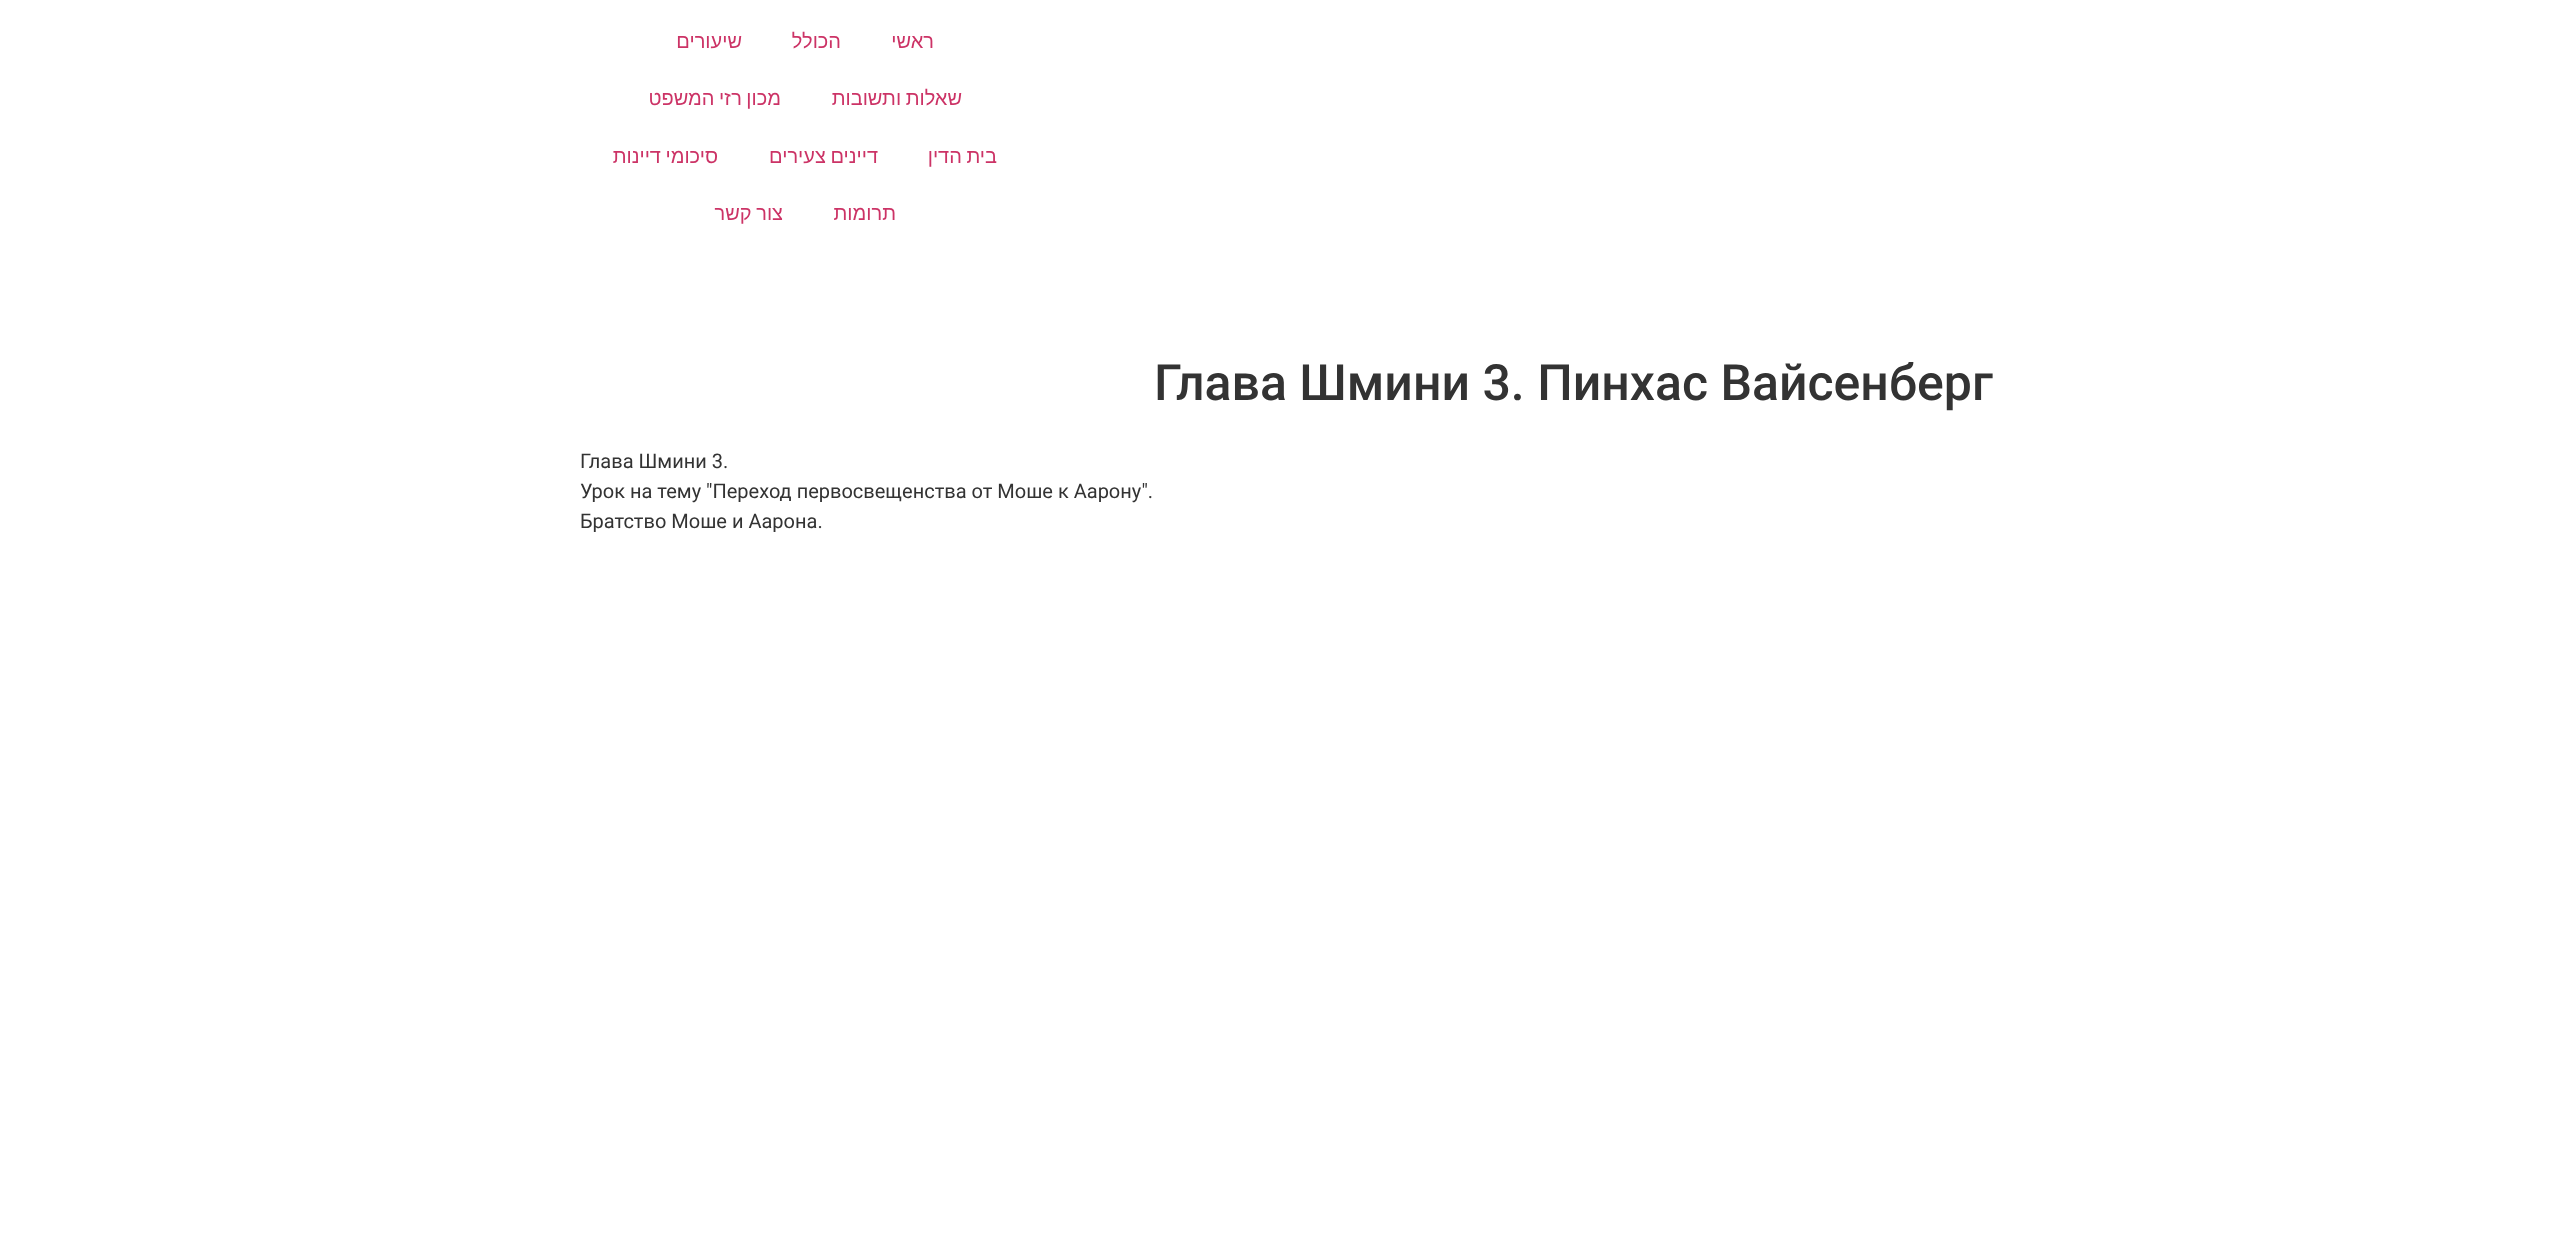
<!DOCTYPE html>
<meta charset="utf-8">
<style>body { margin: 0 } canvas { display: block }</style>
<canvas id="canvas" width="2560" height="1241"></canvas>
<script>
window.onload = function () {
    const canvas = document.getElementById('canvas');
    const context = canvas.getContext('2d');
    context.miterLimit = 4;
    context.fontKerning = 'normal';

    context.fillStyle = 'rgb(255, 255, 255)';
    context.fillRect(0, 0, 2560, 1241);
    context.direction = 'rtl';
    context.font = '20px Liberation Sans';
    context.fillStyle = 'rgb(204, 51, 102)';
    context.fillText('שיעורים', 742, 48);
    context.fillText('הכולל', 841, 48);
    context.fillText('ראשי', 934, 48);
    context.wordSpacing = '-1px';
    context.fillText('מכון רזי המשפט', 781, 105);
    context.fillText('שאלות ותשובות', 962, 105);
    context.fillText('סיכומי דיינות', 718, 163);
    context.fillText('דיינים צעירים', 878, 163);
    context.fillText('בית הדין', 997, 163);
    context.fillText('צור קשר', 783, 220);
    context.wordSpacing = '0px';
    context.fillText('תרומות', 896, 220);
    context.direction = 'ltr';
    context.font = '500 50px Roboto';
    context.fillStyle = 'rgb(51, 51, 51)';
    context.fillText('Глава Шмини 3. Пинхас Вайсенберг', 1154, 400);
    context.font = '20px Roboto';
    context.fillText('Глава Шмини 3.', 580, 468);
    context.fillText('Урок на тему "Переход первосвещенства от Моше к Аарону".', 580, 498);
    context.fillText('Братство Моше и Аарона.', 580, 528);
};
</script>
